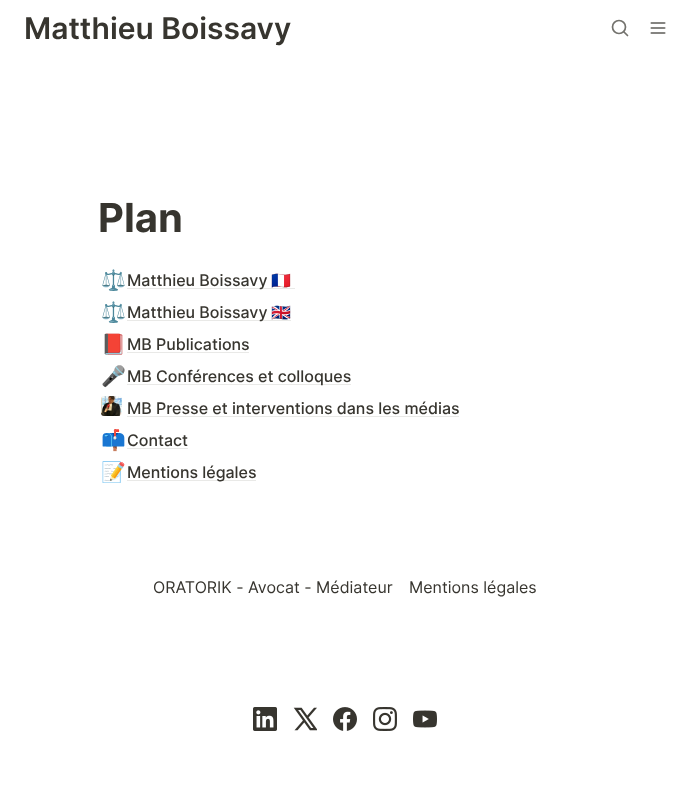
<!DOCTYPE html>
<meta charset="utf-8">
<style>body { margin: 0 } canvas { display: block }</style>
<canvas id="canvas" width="690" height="799"></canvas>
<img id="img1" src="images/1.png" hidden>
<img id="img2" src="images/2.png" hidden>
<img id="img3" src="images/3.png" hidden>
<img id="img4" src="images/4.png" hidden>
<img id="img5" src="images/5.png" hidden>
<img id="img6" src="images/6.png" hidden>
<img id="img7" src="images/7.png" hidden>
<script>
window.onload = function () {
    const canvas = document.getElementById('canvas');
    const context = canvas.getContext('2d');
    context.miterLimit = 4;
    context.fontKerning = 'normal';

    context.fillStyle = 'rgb(255, 255, 255)';
    context.fillRect(0, 0, 690, 799);
    context.beginPath();
    context.arc(619, 27, 6.5, 0, 2 * Math.PI);
    context.strokeStyle = 'rgb(115, 114, 109)';
    context.lineWidth = 1.7;
    context.stroke();
    context.beginPath();
    context.moveTo(627.5, 35.5);
    context.lineTo(624, 32);
    context.lineCap = 'round';
    context.lineJoin = 'round';
    context.stroke();
    context.drawImage(document.getElementById('img1'), 650, 22, 16, 12);
    context.fillStyle = 'rgb(233, 233, 231)';
    context.fillRect(127, 288, 168, 1);
    context.fillRect(127, 320, 164, 1);
    context.fillRect(127, 352, 122, 1);
    context.fillRect(127, 384, 224, 1);
    context.drawImage(document.getElementById('img2'), 101, 396, 21, 20);
    context.fillRect(127, 416, 332, 1);
    context.fillRect(127, 448, 61, 1);
    context.fillRect(127, 480, 129, 1);
    context.drawImage(document.getElementById('img3'), 253, 707, 24, 24);
    context.drawImage(document.getElementById('img4'), 293, 707, 24, 24);
    context.drawImage(document.getElementById('img5'), 333, 707, 24, 24);
    context.drawImage(document.getElementById('img6'), 373, 707, 24, 24);
    context.drawImage(document.getElementById('img7'), 413, 710, 24, 18);
    context.font = '600 30px Inter';
    context.fillStyle = 'rgb(55, 53, 47)';
    context.fillText('Matthieu Boissavy', 24, 39);
    context.font = 'bold 40px Inter';
    context.fillText('Plan', 98, 232);
    context.font = '20px Noto Color Emoji';
    context.fillText('⚖️', 101, 287);
    context.font = '500 16px Inter';
    context.fillText('Matthieu Boissavy', 127, 286);
    context.font = '16px Noto Color Emoji';
    context.fillText('🇫🇷', 271, 286);
    context.font = '20px Noto Color Emoji';
    context.fillText('⚖️', 101, 319);
    context.font = '500 16px Inter';
    context.fillText('Matthieu Boissavy', 127, 318);
    context.font = '16px Noto Color Emoji';
    context.fillText('🇬🇧', 271, 318);
    context.font = '20px Noto Color Emoji';
    context.fillText('📕', 101, 351);
    context.font = '500 16px Inter';
    context.fillText('MB Publications', 127, 350);
    context.font = '20px Noto Color Emoji';
    context.fillText('🎤', 101, 383);
    context.font = '500 16px Inter';
    context.fillText('MB Conférences et colloques', 127, 382);
    context.fillText('MB Presse et interventions dans les médias', 127, 414);
    context.font = '20px Noto Color Emoji';
    context.fillText('📫', 101, 447);
    context.font = '500 16px Inter';
    context.fillText('Contact', 127, 446);
    context.font = '20px Noto Color Emoji';
    context.fillText('📝', 101, 479);
    context.font = '500 16px Inter';
    context.fillText('Mentions légales', 127, 478);
    context.font = '16px Inter';
    context.fillText('ORATORIK - Avocat - Médiateur', 153, 593);
    context.fillText('Mentions légales', 409, 593);
};
</script>
